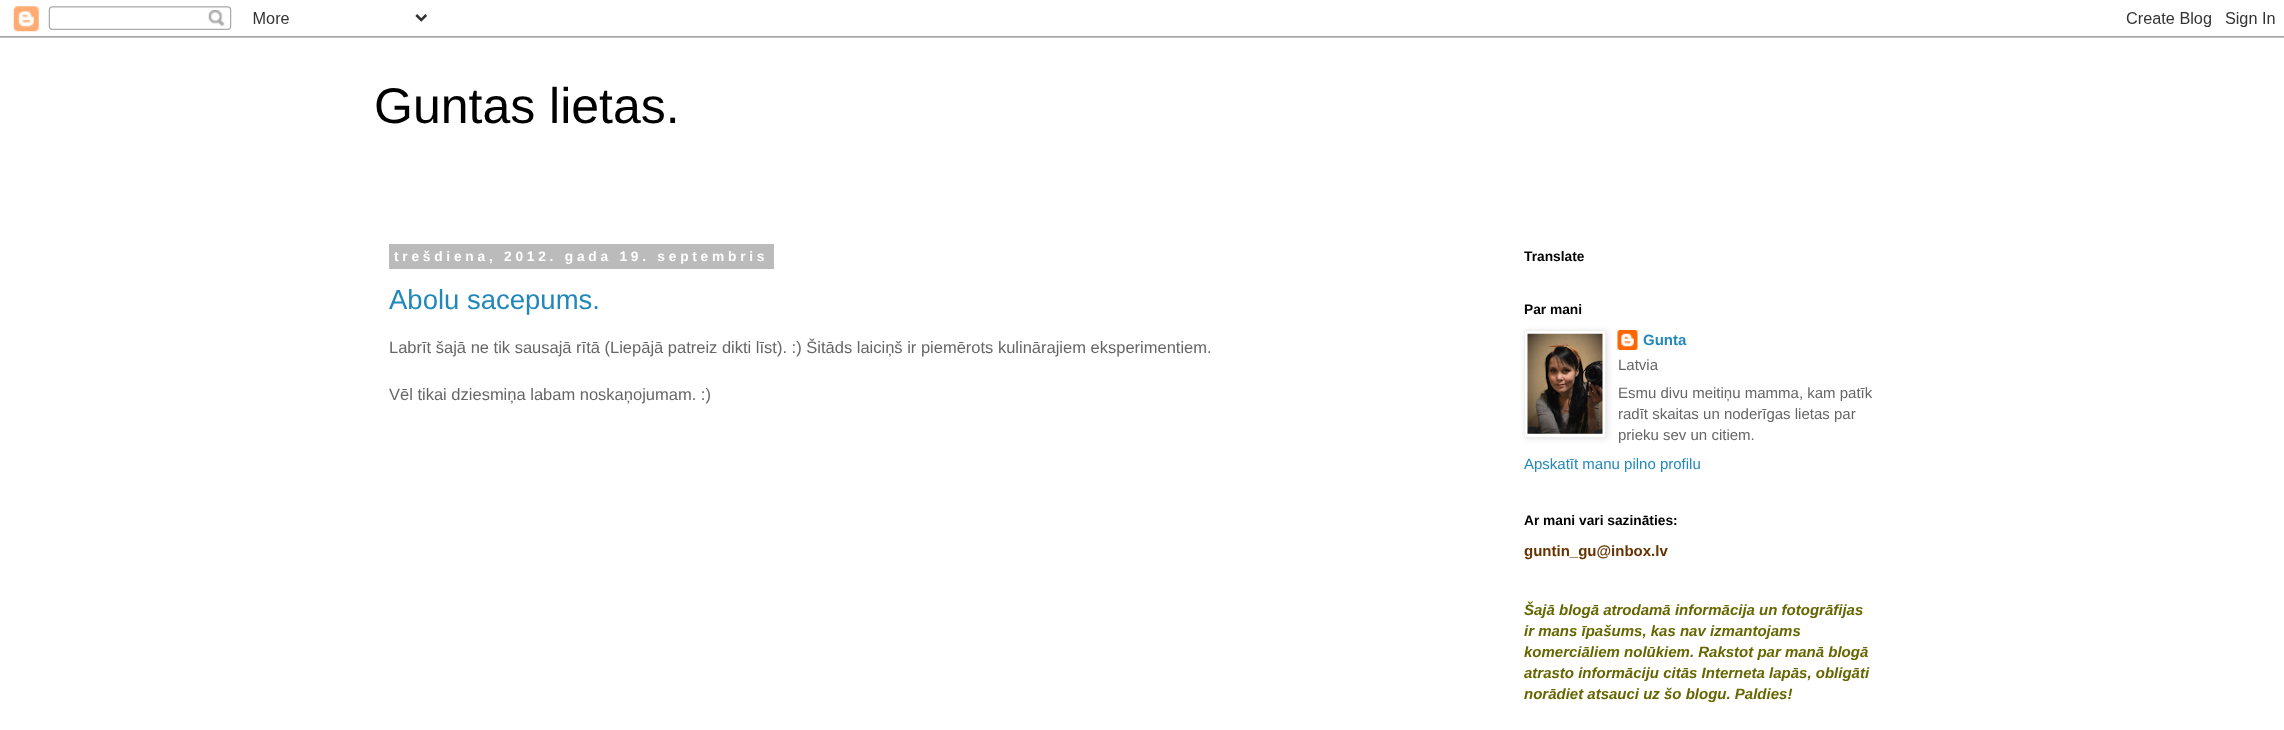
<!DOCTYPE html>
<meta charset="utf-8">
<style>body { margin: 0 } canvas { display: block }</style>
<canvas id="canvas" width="2284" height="730"></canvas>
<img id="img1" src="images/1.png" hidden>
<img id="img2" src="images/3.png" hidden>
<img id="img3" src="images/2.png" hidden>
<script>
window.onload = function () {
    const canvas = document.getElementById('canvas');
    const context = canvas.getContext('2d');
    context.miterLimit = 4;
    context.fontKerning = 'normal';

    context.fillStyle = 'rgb(255, 255, 255)';
    context.fillRect(0, 0, 2284, 730);
    context.drawImage(document.getElementById('img1'), 0, 6, 2284, 32);
    context.fillStyle = 'rgb(187, 187, 187)';
    context.fillRect(389, 244, 385, 25);
    context.drawImage(document.getElementById('img2'), 1617, 330, 21, 20);
    context.fillStyle = 'rgba(0, 0, 0, 0.1)';
    context.filter = 'blur(3px)';
    context.beginPath();
    context.rect(1525, 331, 83, 108);
    context.fill();
    context.filter = 'none';
    context.fillStyle = 'rgb(255, 255, 255)';
    context.beginPath();
    context.rect(1524.5, 330.5, 81, 107);
    context.fill();
    context.strokeStyle = 'rgb(238, 238, 238)';
    context.stroke();
    context.drawImage(document.getElementById('img3'), 1527, 333, 76, 101);
    context.font = '50px Liberation Sans';
    context.fillStyle = 'rgb(0, 0, 0)';
    context.fillText('Guntas lietas.', 374, 123);
    context.letterSpacing = '3.75px';
    context.font = 'bold 13.75px Liberation Sans';
    context.fillStyle = 'rgb(255, 255, 255)';
    context.fillText('trešdiena, 2012. gada 19. septembris', 394, 261);
    context.letterSpacing = '0px';
    context.font = '27.5px Liberation Sans';
    context.fillStyle = 'rgb(34, 136, 187)';
    context.fillText('Abolu sacepums.', 389, 309);
    context.font = '16.5px Liberation Sans';
    context.fillStyle = 'rgb(102, 102, 102)';
    context.fillText('Labrīt šajā ne tik sausajā rītā (Liepājā patreiz dikti līst). :) Šitāds laiciņš ir piemērots kulinārajiem eksperimentiem.', 389, 353);
    context.fillText('Vēl tikai dziesmiņa labam noskaņojumam. :)', 389, 400);
    context.font = 'bold 13.75px Liberation Sans';
    context.fillStyle = 'rgb(0, 0, 0)';
    context.fillText('Translate', 1524, 261);
    context.fillText('Par mani', 1524, 314);
    context.font = 'bold 15px Liberation Sans';
    context.fillStyle = 'rgb(34, 136, 187)';
    context.fillText('Gunta', 1643, 345);
    context.font = '15px Liberation Sans';
    context.fillStyle = 'rgb(102, 102, 102)';
    context.fillText('Latvia', 1618, 370);
    context.fillText('Esmu divu meitiņu mamma, kam patīk', 1618, 398);
    context.fillText('radīt skaitas un noderīgas lietas par', 1618, 419);
    context.fillText('prieku sev un citiem.', 1618, 440);
    context.fillStyle = 'rgb(34, 136, 187)';
    context.fillText('Apskatīt manu pilno profilu', 1524, 469);
    context.font = 'bold 13.75px Liberation Sans';
    context.fillStyle = 'rgb(0, 0, 0)';
    context.fillText('Ar mani vari sazināties:', 1524, 525);
    context.font = 'bold 15px Liberation Sans';
    context.fillStyle = 'rgb(102, 51, 0)';
    context.fillText('guntin_gu@inbox.lv', 1524, 556);
    context.font = 'italic bold 15px Liberation Sans';
    context.fillStyle = 'rgb(102, 102, 0)';
    context.fillText('Šajā blogā atrodamā informācija un fotogrāfijas', 1524, 615);
    context.fillText('ir mans īpašums, kas nav izmantojams', 1524, 636);
    context.fillText('komerciāliem nolūkiem. Rakstot par manā blogā', 1524, 657);
    context.fillText('atrasto informāciju citās Interneta lapās, obligāti', 1524, 678);
    context.fillText('norādiet atsauci uz šo blogu. Paldies!', 1524, 699);
};
</script>
